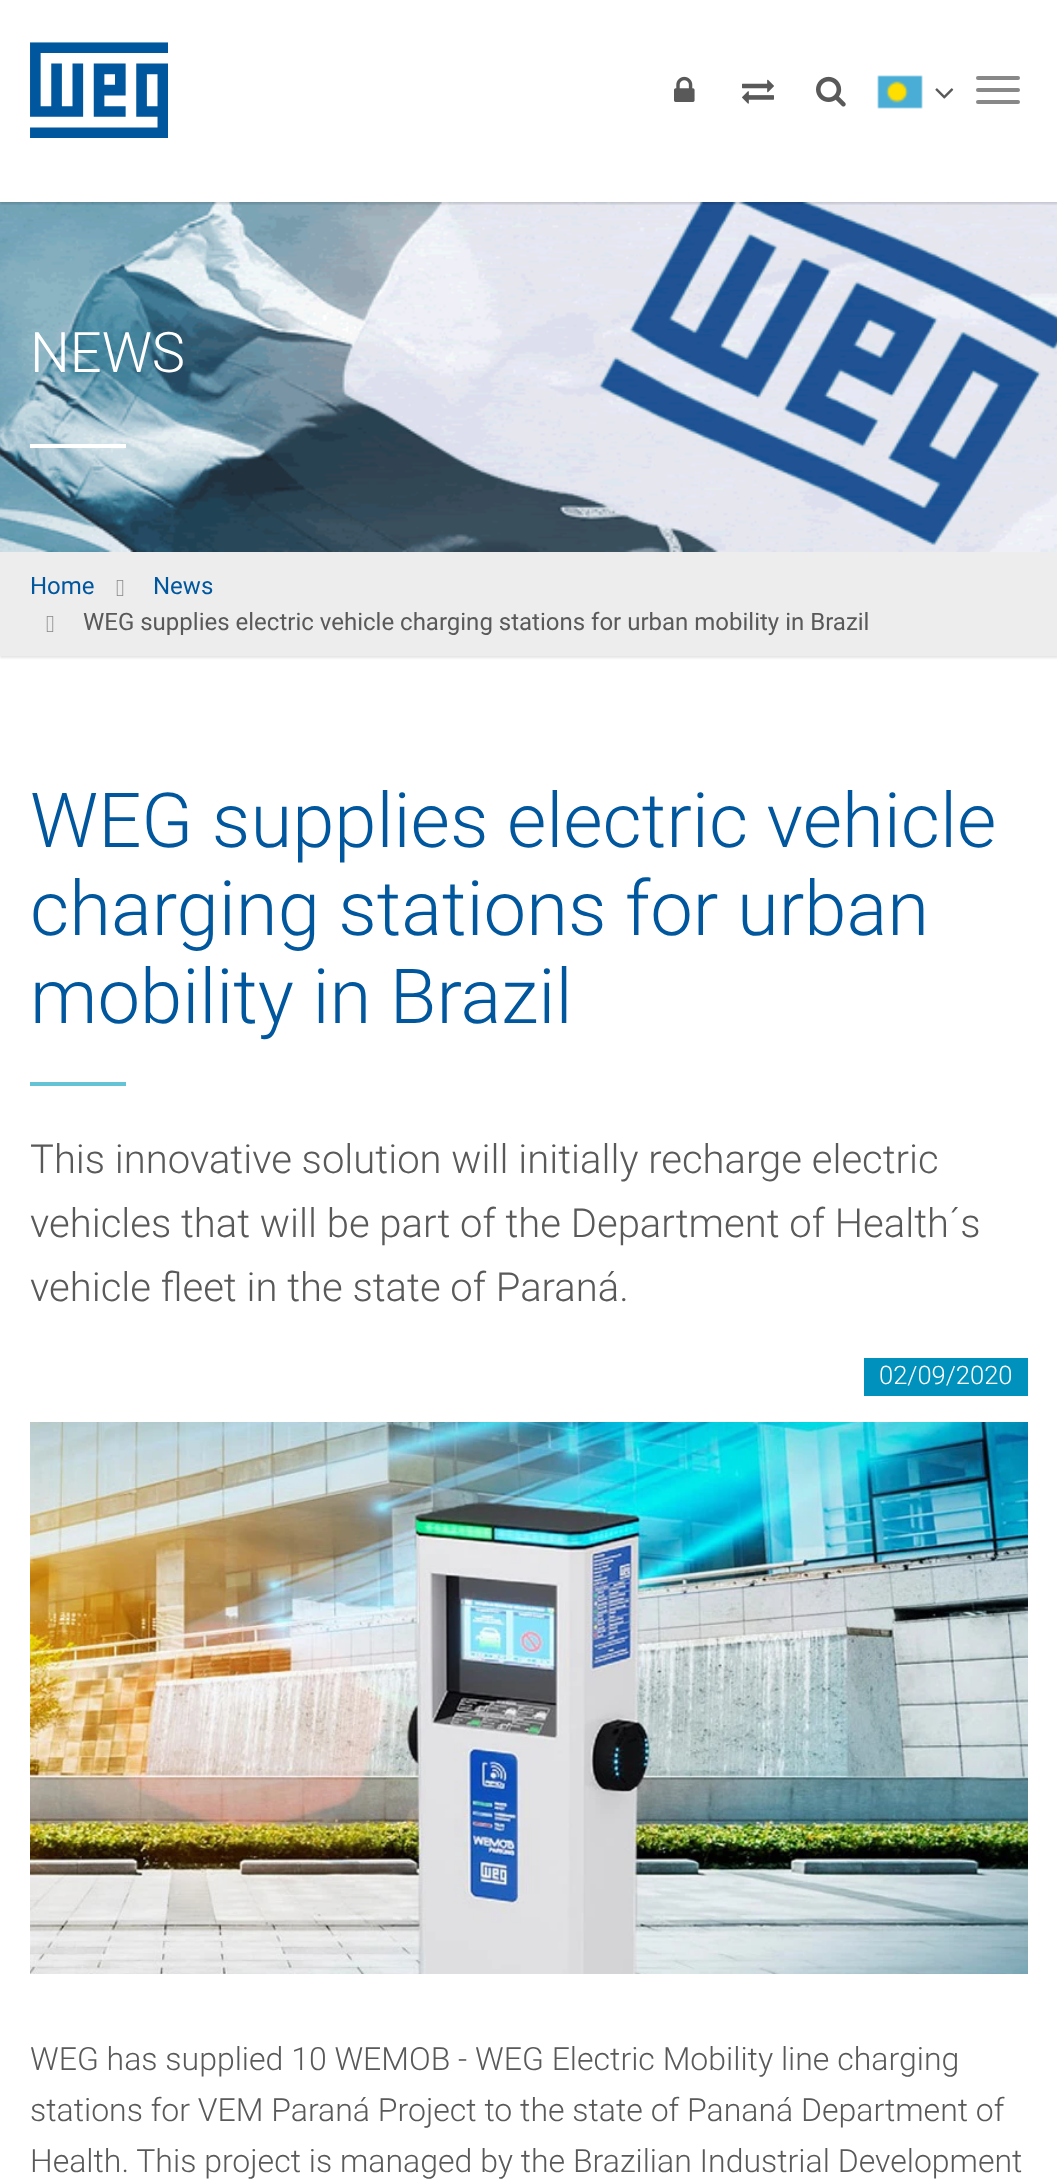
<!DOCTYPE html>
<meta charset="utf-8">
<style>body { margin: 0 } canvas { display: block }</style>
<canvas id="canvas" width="1057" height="2184"></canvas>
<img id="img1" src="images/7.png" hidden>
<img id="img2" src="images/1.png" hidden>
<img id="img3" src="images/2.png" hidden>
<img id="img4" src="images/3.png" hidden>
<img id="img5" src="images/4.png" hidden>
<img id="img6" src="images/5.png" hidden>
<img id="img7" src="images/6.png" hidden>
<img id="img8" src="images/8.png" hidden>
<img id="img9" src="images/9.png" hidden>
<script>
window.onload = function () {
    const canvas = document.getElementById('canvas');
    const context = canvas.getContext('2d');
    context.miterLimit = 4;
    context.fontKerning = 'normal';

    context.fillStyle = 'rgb(255, 255, 255)';
    context.fillRect(0, 0, 1057, 2184);
    context.drawImage(document.getElementById('img1'), 0, 202, 1057, 350);
    context.save();
    context.beginPath();
    context.rect(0, 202, 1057, 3);
    context.clip();
    context.fillStyle = 'rgba(0, 0, 0, 0.15)';
    context.filter = 'blur(1px)';
    context.beginPath();
    context.rect(0, 2, 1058, 202);
    context.fill();
    context.filter = 'none';
    context.restore();
    context.drawImage(document.getElementById('img2'), 30, 42, 138, 96);
    context.drawImage(document.getElementById('img3'), 674, 76, 21, 26);
    context.drawImage(document.getElementById('img4'), 742, 79, 32, 25);
    context.drawImage(document.getElementById('img5'), 816, 76, 30, 31);
    context.drawImage(document.getElementById('img6'), 877, 75, 46, 34);
    context.drawImage(document.getElementById('img7'), 935, 88, 19, 11);
    context.fillStyle = 'rgb(136, 136, 136)';
    context.beginPath();
    context.roundRect(976, 76, 44, 4, 2);
    context.fill();
    context.beginPath();
    context.roundRect(976, 88, 44, 4, 2);
    context.fill();
    context.beginPath();
    context.roundRect(976, 100, 44, 4, 2);
    context.fill();
    context.fillStyle = 'rgb(255, 255, 255)';
    context.fillRect(30, 444, 96, 4);
    context.fillStyle = 'rgba(0, 0, 0, 0.1)';
    context.filter = 'blur(1px)';
    context.beginPath();
    context.rect(0, 554, 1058, 104);
    context.fill();
    context.filter = 'none';
    context.fillStyle = 'rgb(237, 237, 237)';
    context.fillRect(0, 552, 1057, 104);
    context.drawImage(document.getElementById('img8'), 116, 580, 8, 16);
    context.drawImage(document.getElementById('img8'), 46, 616, 8, 16);
    context.fillStyle = 'rgb(100, 195, 213)';
    context.fillRect(30, 1082, 96, 4);
    context.fillStyle = 'rgb(0, 145, 189)';
    context.fillRect(864, 1358, 164, 38);
    context.drawImage(document.getElementById('img9'), 30, 1422, 998, 552);
    context.font = '300 56px Roboto';
    context.fillStyle = 'rgb(255, 255, 255)';
    context.fillText('NEWS', 30, 372);
    context.font = '24px Roboto';
    context.fillStyle = 'rgb(0, 87, 157)';
    context.fillText('Home', 30, 594);
    context.fillText('News', 153, 594);
    context.fillStyle = 'rgb(89, 89, 89)';
    context.fillText('WEG supplies electric vehicle charging stations for urban mobility in Brazil', 83, 630);
    context.font = '300 76px Roboto';
    context.fillStyle = 'rgb(0, 87, 157)';
    context.fillText('WEG supplies electric vehicle', 30, 847);
    context.fillText('charging stations for urban', 30, 935);
    context.fillText('mobility in Brazil', 30, 1023);
    context.font = '300 40px Roboto';
    context.fillStyle = 'rgb(89, 89, 89)';
    context.fillText('This innovative solution will initially recharge electric', 30, 1173);
    context.fillText('vehicles that will be part of the Department of Health´s', 30, 1237);
    context.fillText('vehicle fleet in the state of Paraná.', 30, 1301);
    context.font = '300 25.5px Roboto';
    context.fillStyle = 'rgb(255, 255, 255)';
    context.fillText('02/09/2020', 879, 1384);
    context.font = '300 32px Roboto';
    context.fillStyle = 'rgb(89, 89, 89)';
    context.fillText('WEG has supplied 10 WEMOB - WEG Electric Mobility line charging', 30, 2070);
    context.fillText('stations for VEM Paraná Project to the state of Pananá Department of', 30, 2121);
    context.fillText('Health. This project is managed by the Brazilian Industrial Development', 30, 2172);
};
</script>
